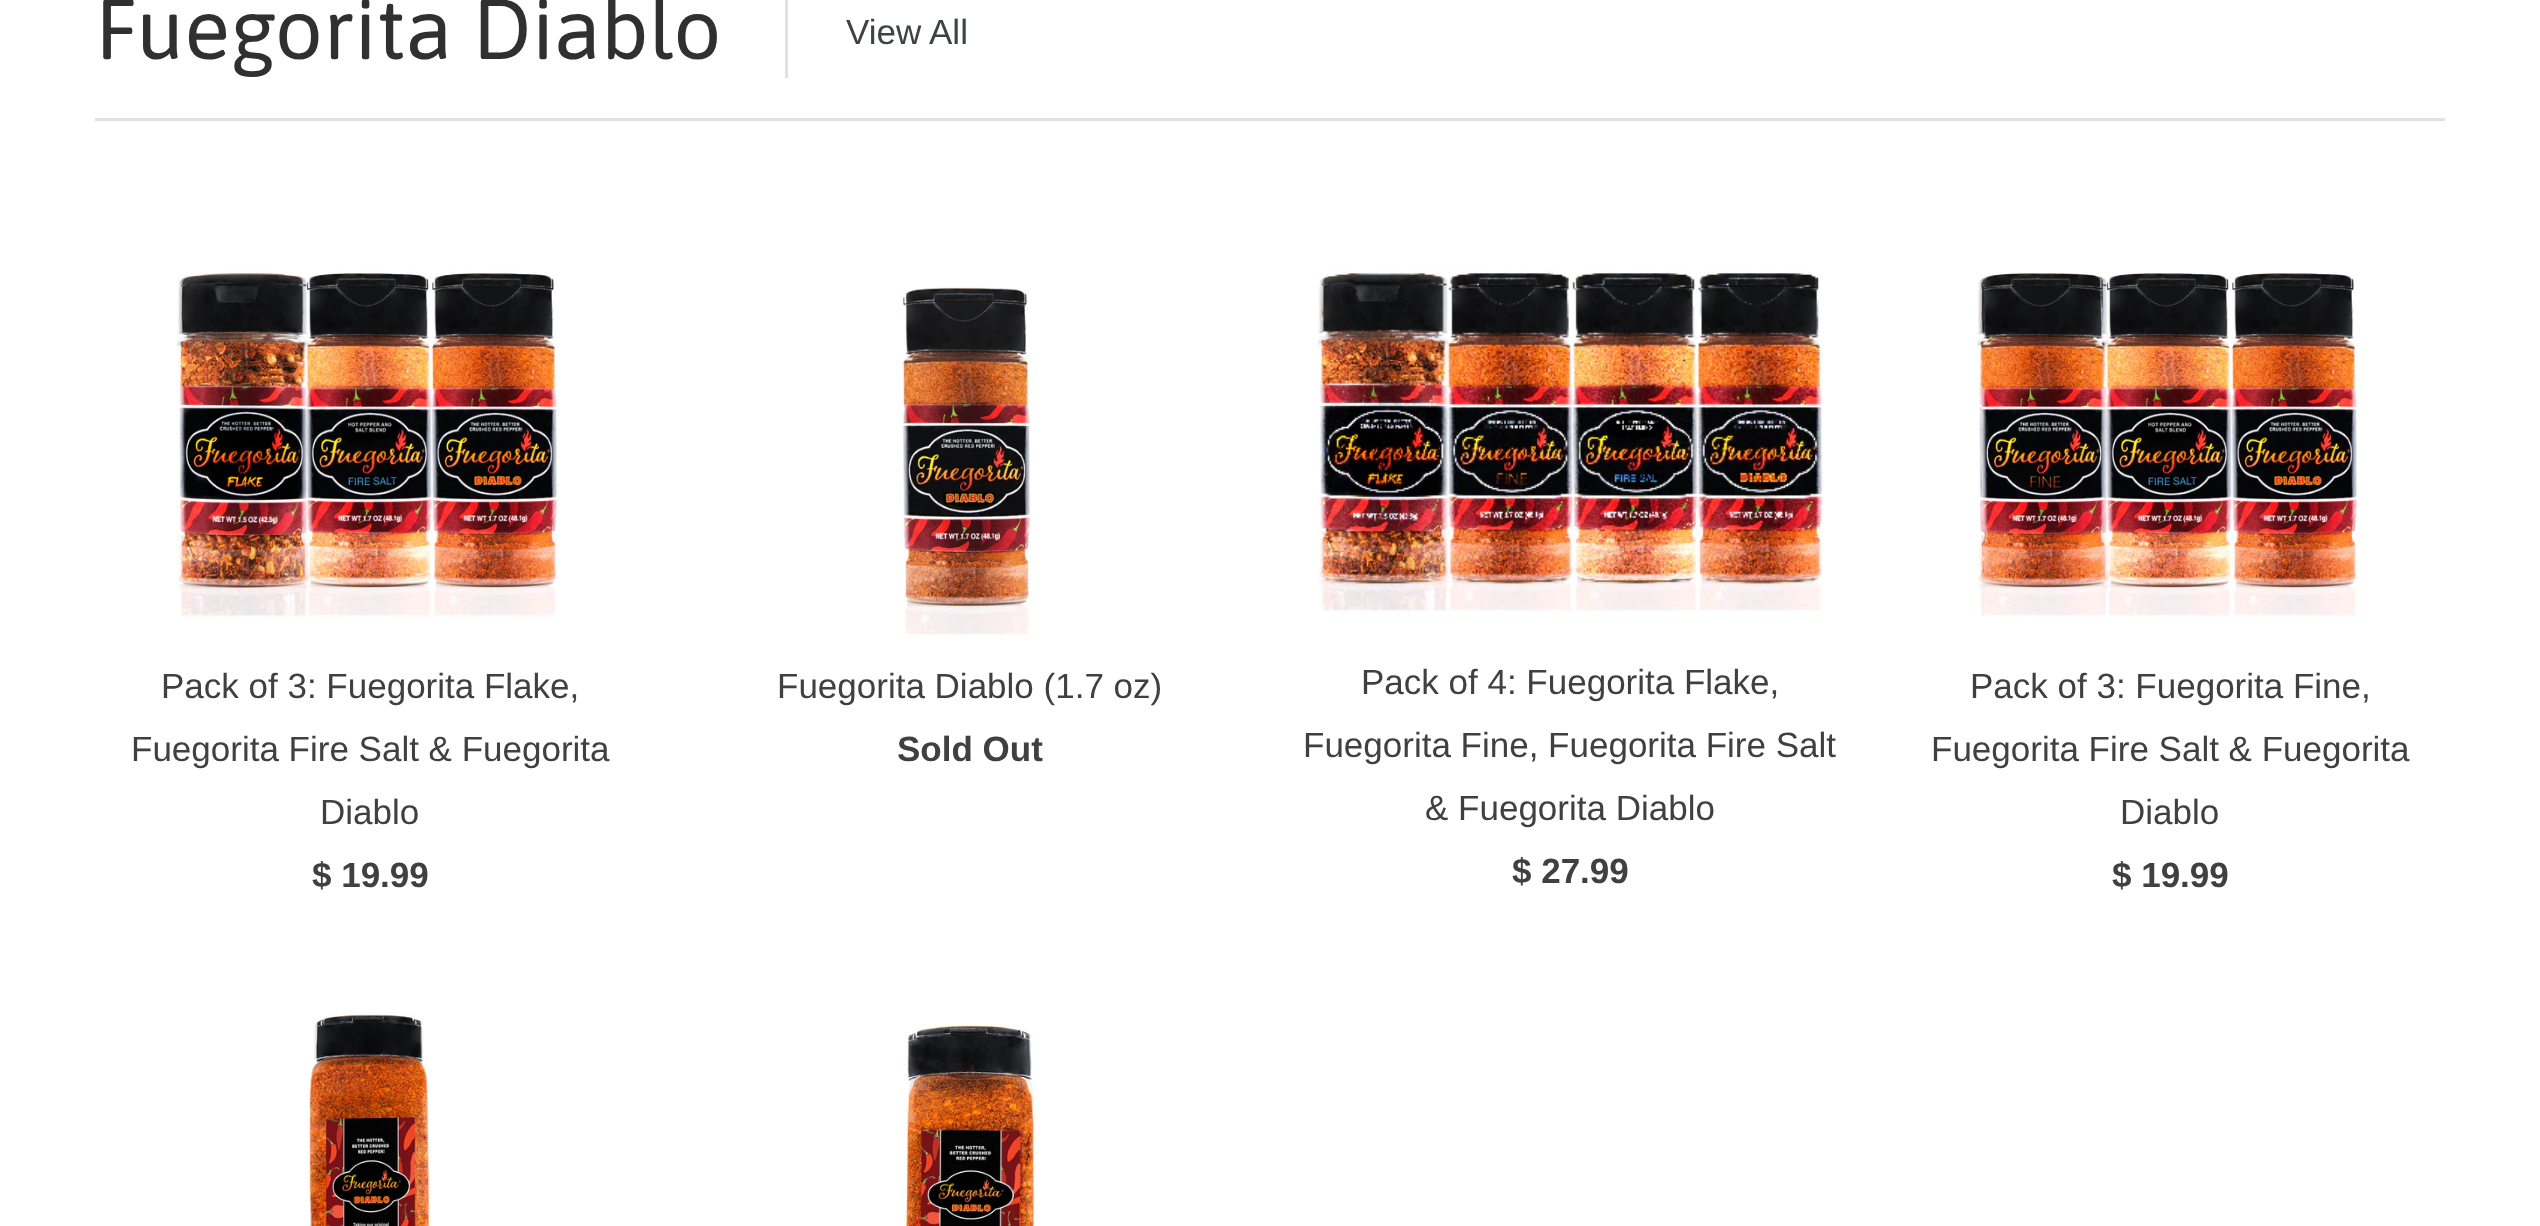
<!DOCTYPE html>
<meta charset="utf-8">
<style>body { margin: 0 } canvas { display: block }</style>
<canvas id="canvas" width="2540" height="1226"></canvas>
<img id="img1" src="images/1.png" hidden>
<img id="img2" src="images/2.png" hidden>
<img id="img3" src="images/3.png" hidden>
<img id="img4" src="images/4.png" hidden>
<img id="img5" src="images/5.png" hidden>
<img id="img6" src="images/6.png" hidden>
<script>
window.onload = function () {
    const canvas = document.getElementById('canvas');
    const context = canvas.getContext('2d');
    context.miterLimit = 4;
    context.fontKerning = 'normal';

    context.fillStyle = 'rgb(255, 255, 255)';
    context.fillRect(0, 0, 2540, 1226);
    context.fillStyle = 'rgb(219, 227, 229)';
    context.fillRect(95, 118, 2350, 3);
    context.fillRect(785, 0, 3, 78);
    context.drawImage(document.getElementById('img1'), 177, 271, 382, 347);
    context.drawImage(document.getElementById('img2'), 902, 287, 129, 348);
    context.drawImage(document.getElementById('img3'), 1317, 270, 506, 341);
    context.drawImage(document.getElementById('img4'), 1977, 272, 382, 344);
    context.drawImage(document.getElementById('img5'), 308, 1013, 123, 213);
    context.drawImage(document.getElementById('img6'), 902, 1024, 134, 202);
    context.font = '85px Asap';
    context.fillStyle = 'rgb(48, 48, 48)';
    context.fillText('Fuegorita Diablo', 95, 59);
    context.font = '35px Liberation Sans';
    context.fillStyle = 'rgb(61, 66, 71)';
    context.fillText('View All', 846, 44);
    context.fillStyle = 'rgb(64, 64, 64)';
    context.fillText('Pack of 3: Fuegorita Flake,', 161, 698);
    context.fillText('Fuegorita Fire Salt & Fuegorita', 131, 761);
    context.fillText('Diablo', 320, 824);
    context.font = 'bold 35px Liberation Sans';
    context.fillText('$ 19.99', 312, 887);
    context.font = '35px Liberation Sans';
    context.fillText('Fuegorita Diablo (1.7 oz)', 777, 698);
    context.font = 'bold 35px Liberation Sans';
    context.fillText('Sold Out', 897, 761);
    context.font = '35px Liberation Sans';
    context.fillText('Pack of 4: Fuegorita Flake,', 1361, 694);
    context.fillText('Fuegorita Fine, Fuegorita Fire Salt', 1303, 757);
    context.fillText('& Fuegorita Diablo', 1425, 820);
    context.font = 'bold 35px Liberation Sans';
    context.fillText('$ 27.99', 1512, 883);
    context.font = '35px Liberation Sans';
    context.fillText('Pack of 3: Fuegorita Fine,', 1970, 698);
    context.fillText('Fuegorita Fire Salt & Fuegorita', 1931, 761);
    context.fillText('Diablo', 2120, 824);
    context.font = 'bold 35px Liberation Sans';
    context.fillText('$ 19.99', 2112, 887);
};
</script>
